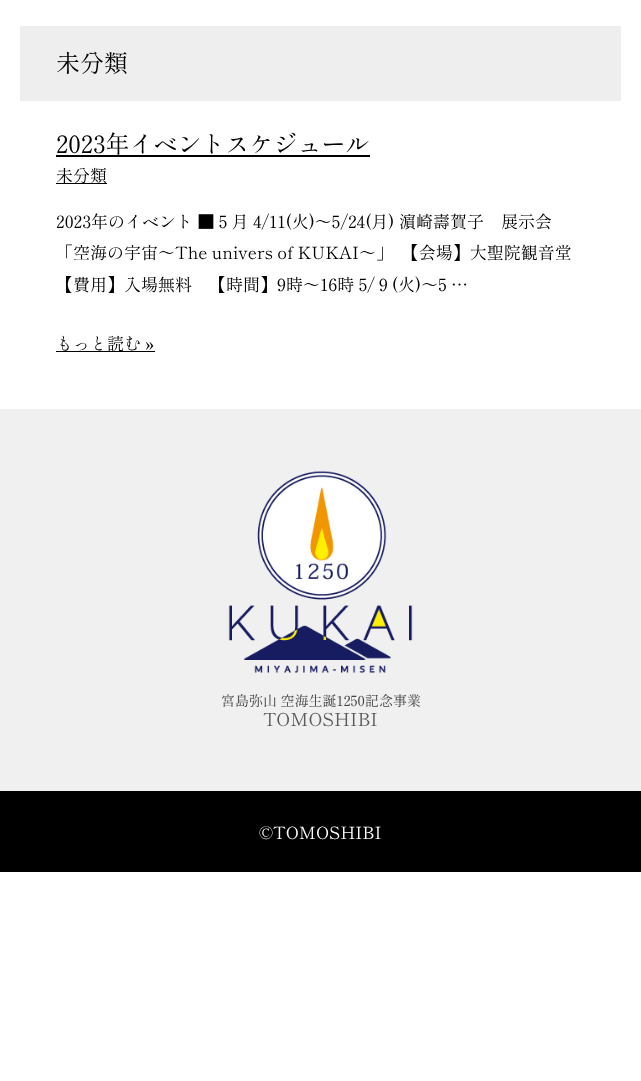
<!DOCTYPE html>
<meta charset="utf-8">
<style>body { margin: 0 } canvas { display: block }</style>
<canvas id="canvas" width="641" height="1081"></canvas>
<img id="img1" src="images/1.png" hidden>
<script>
window.onload = function () {
    const canvas = document.getElementById('canvas');
    const context = canvas.getContext('2d');
    context.miterLimit = 4;
    context.fontKerning = 'normal';

    context.fillStyle = 'rgb(255, 255, 255)';
    context.fillRect(0, 0, 641, 1081);
    context.fillStyle = 'rgb(238, 238, 238)';
    context.fillRect(20, 26, 601, 75);
    context.fillStyle = 'rgb(0, 0, 0)';
    context.fillRect(56, 155, 314, 2);
    context.fillRect(56, 183, 51, 1);
    context.fillRect(56, 351, 99, 1);
    context.fillStyle = 'rgb(240, 240, 240)';
    context.fillRect(0, 409, 641, 382);
    context.drawImage(document.getElementById('img1'), 228, 471, 185, 202);
    context.fillStyle = 'rgb(0, 0, 0)';
    context.fillRect(0, 791, 641, 81);
    context.font = '24px Shippori Mincho';
    context.fillText('未分類', 56, 72);
    context.fillText('2023年イベントスケジュール', 56, 153);
    context.font = '17px Shippori Mincho';
    context.fillText('未分類', 56, 182);
    context.fillText('2023年のイベント ■５月 4/11(火)～5/24(月) 濵崎壽賀子　展示会', 56, 228);
    context.fillText('「空海の宇宙～The univers of KUKAI～」  【会場】大聖院観音堂', 56, 259);
    context.fillText('【費用】入場無料　【時間】9時～16時 5/９(火)～5 …', 56, 291);
    context.fillText('もっと読む »', 56, 350);
    context.font = '14px Shippori Mincho';
    context.fillStyle = 'rgb(65, 65, 65)';
    context.fillText('宮島弥山 空海生誕1250記念事業', 221, 706);
    context.font = '18px Shippori Mincho';
    context.fillStyle = 'rgb(90, 90, 90)';
    context.fillText('TOMOSHIBI', 263, 726);
    context.font = '17px Shippori Mincho';
    context.fillStyle = 'rgb(255, 255, 255)';
    context.fillText('©TOMOSHIBI', 259, 839);
};
</script>
